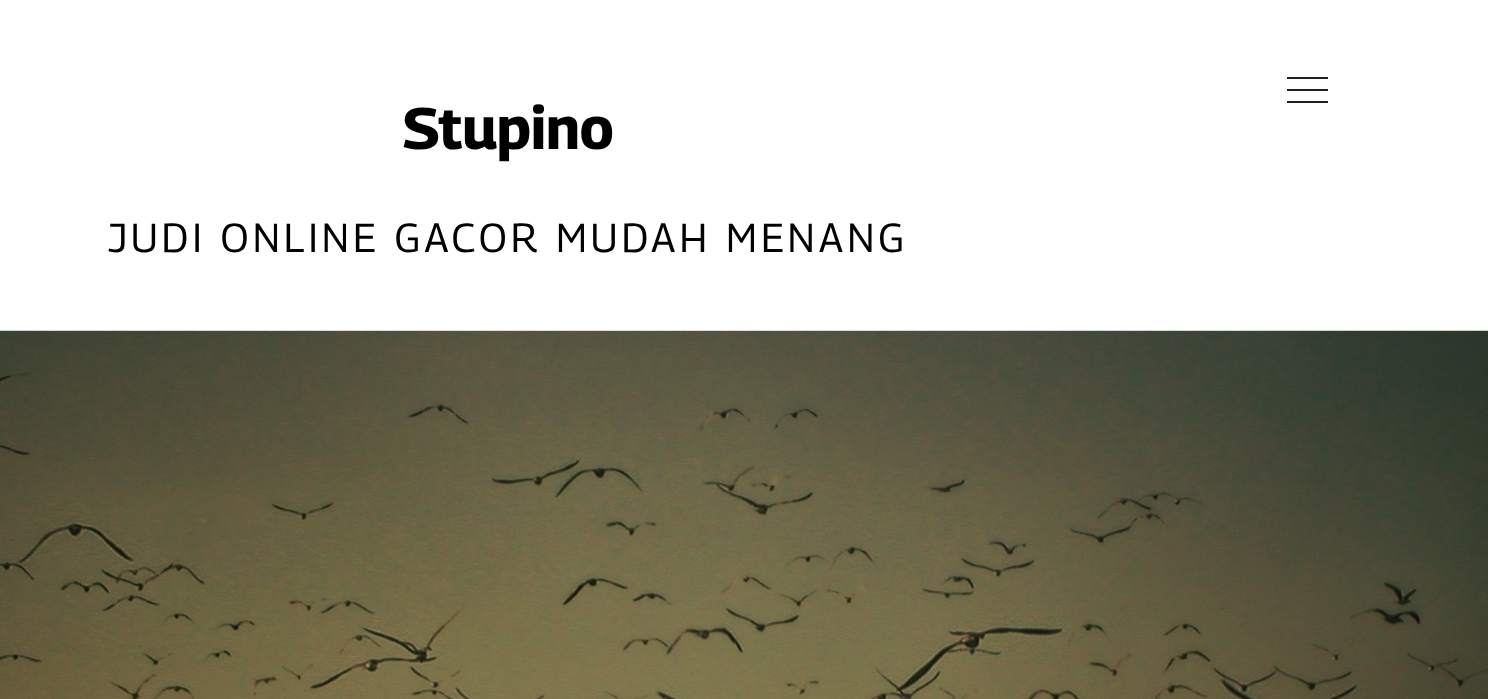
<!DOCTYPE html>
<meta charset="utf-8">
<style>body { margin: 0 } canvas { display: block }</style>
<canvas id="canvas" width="1488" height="699"></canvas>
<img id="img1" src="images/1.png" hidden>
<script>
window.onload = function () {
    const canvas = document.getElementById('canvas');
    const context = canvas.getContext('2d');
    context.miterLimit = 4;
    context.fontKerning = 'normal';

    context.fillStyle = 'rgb(255, 255, 255)';
    context.fillRect(0, 0, 1488, 699);
    context.fillStyle = 'rgb(30, 30, 30)';
    context.fillRect(1287, 77, 41, 2);
    context.fillRect(1287, 89, 41, 2);
    context.fillRect(1287, 101, 41, 2);
    context.drawImage(document.getElementById('img1'), 0, 330, 1488, 369);
    context.font = 'bold 58.5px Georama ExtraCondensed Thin';
    context.fillStyle = 'rgb(0, 0, 0)';
    context.fillText('Stupino', 403, 149);
    context.letterSpacing = '4.05px';
    context.font = '40.5px Georama ExtraCondensed Thin';
    context.fillText('JUDI ONLINE GACOR MUDAH MENANG', 108, 252);
};
</script>
